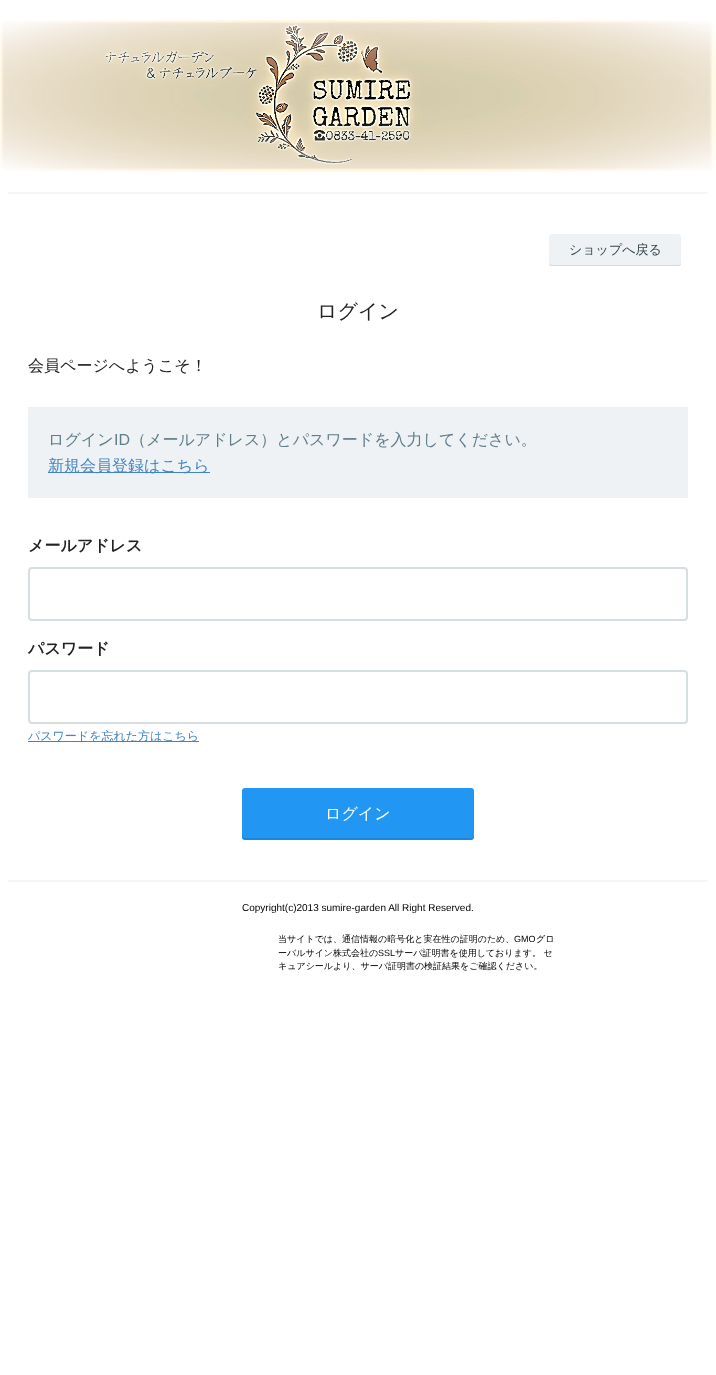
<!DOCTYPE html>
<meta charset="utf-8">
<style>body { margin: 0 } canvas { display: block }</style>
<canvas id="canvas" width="716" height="1375"></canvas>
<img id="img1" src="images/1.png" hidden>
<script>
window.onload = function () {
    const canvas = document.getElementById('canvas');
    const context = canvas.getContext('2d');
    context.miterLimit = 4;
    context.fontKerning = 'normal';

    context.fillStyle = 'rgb(255, 255, 255)';
    context.fillRect(0, 0, 716, 1375);
    context.drawImage(document.getElementById('img1'), 0, 20, 716, 152);
    context.fillStyle = 'rgb(246, 246, 246)';
    context.fillRect(8, 192, 700, 2);
    context.fillRect(8, 880, 700, 2);
    context.fillStyle = 'rgb(239, 242, 244)';
    context.beginPath();
    context.roundRect(549, 234, 132, 32, 3);
    context.fill();
    context.fillStyle = 'rgba(0, 0, 0, 0.1)';
    context.beginPath();
    context.moveTo(549, 262);
    context.bezierCurveTo(549, 264, 549, 266, 551, 266);
    context.lineTo(679, 266);
    context.bezierCurveTo(681, 266, 681, 264, 681, 262);
    context.bezierCurveTo(681, 263, 680, 265, 678, 265);
    context.lineTo(552, 265);
    context.bezierCurveTo(550, 265, 549, 263, 549, 262);
    context.closePath();
    context.fill();
    context.fillStyle = 'rgb(239, 242, 244)';
    context.fillRect(28, 407, 660, 91);
    context.fillStyle = 'rgb(65, 131, 196)';
    context.fillRect(48, 472, 162, 1);
    context.beginPath();
    context.roundRect(29, 568, 658, 52, 3);
    context.strokeStyle = 'rgb(215, 222, 226)';
    context.lineWidth = 2;
    context.stroke();
    context.beginPath();
    context.roundRect(29, 671, 658, 52, 3);
    context.stroke();
    context.fillRect(28, 741, 171, 1);
    context.fillStyle = 'rgb(33, 150, 243)';
    context.beginPath();
    context.roundRect(242, 788, 232, 52, 3);
    context.fill();
    context.fillStyle = 'rgba(0, 0, 0, 0.1)';
    context.beginPath();
    context.moveTo(242, 835);
    context.lineTo(242, 837);
    context.bezierCurveTo(242, 839, 243, 840, 245, 840);
    context.lineTo(471, 840);
    context.bezierCurveTo(473, 840, 474, 839, 474, 837);
    context.lineTo(474, 835);
    context.bezierCurveTo(474, 837, 473, 838, 471, 838);
    context.lineTo(245, 838);
    context.bezierCurveTo(243, 838, 242, 837, 242, 835);
    context.closePath();
    context.fill();
    context.font = '500 13px WenQuanYi Zen Hei';
    context.fillStyle = 'rgb(53, 69, 76)';
    context.fillText('ショップへ戻る', 569, 254);
    context.font = '500 20px WenQuanYi Zen Hei';
    context.fillStyle = 'rgb(34, 34, 34)';
    context.fillText('ログイン', 317, 318);
    context.font = '500 16px WenQuanYi Zen Hei';
    context.fillText('会員ページへようこそ！', 28, 371);
    context.fillStyle = 'rgb(96, 125, 139)';
    context.fillText('ログイン', 48, 445);
    context.font = '16px Liberation Sans';
    context.fillText('ID', 114, 445);
    context.font = '500 16px WenQuanYi Zen Hei';
    context.fillText('（メールアドレス）とパスワードを入力してください。', 130, 445);
    context.fillStyle = 'rgb(65, 131, 196)';
    context.fillText('新規会員登録はこちら', 48, 471);
    context.font = 'bold 16px WenQuanYi Zen Hei';
    context.fillStyle = 'rgb(34, 34, 34)';
    context.fillText('メールアドレス', 28, 551);
    context.fillText('パスワード', 28, 654);
    context.font = '500 12px WenQuanYi Zen Hei';
    context.fillStyle = 'rgb(65, 131, 196)';
    context.fillText('パスワードを忘れた方はこちら', 28, 740);
    context.font = '500 16px WenQuanYi Zen Hei';
    context.fillStyle = 'rgb(255, 255, 255)';
    context.fillText('ログイン', 325, 819);
    context.font = '10px Liberation Sans';
    context.fillStyle = 'rgb(0, 0, 0)';
    context.fillText('Copyright(c)2013 sumire-garden All Right Reserved.', 242, 911);
    context.font = '500 9px WenQuanYi Zen Hei';
    context.fillText('当サイトでは、通信情報の暗号化と実在性の証明のため、', 278, 942);
    context.font = '9px Liberation Sans';
    context.fillText('GMO', 514, 942);
    context.font = '500 9px WenQuanYi Zen Hei';
    context.fillText('グロ', 536, 942);
    context.fillText('ーバルサイン株式会社の', 278, 956);
    context.font = '9px Liberation Sans';
    context.fillText('SSL', 378, 956);
    context.font = '500 9px WenQuanYi Zen Hei';
    context.fillText('サーバ証明書を使用しております。 セ', 395, 956);
    context.fillText('キュアシールより、サーバ証明書の検証結果をご確認ください。', 278, 969);
};
</script>
